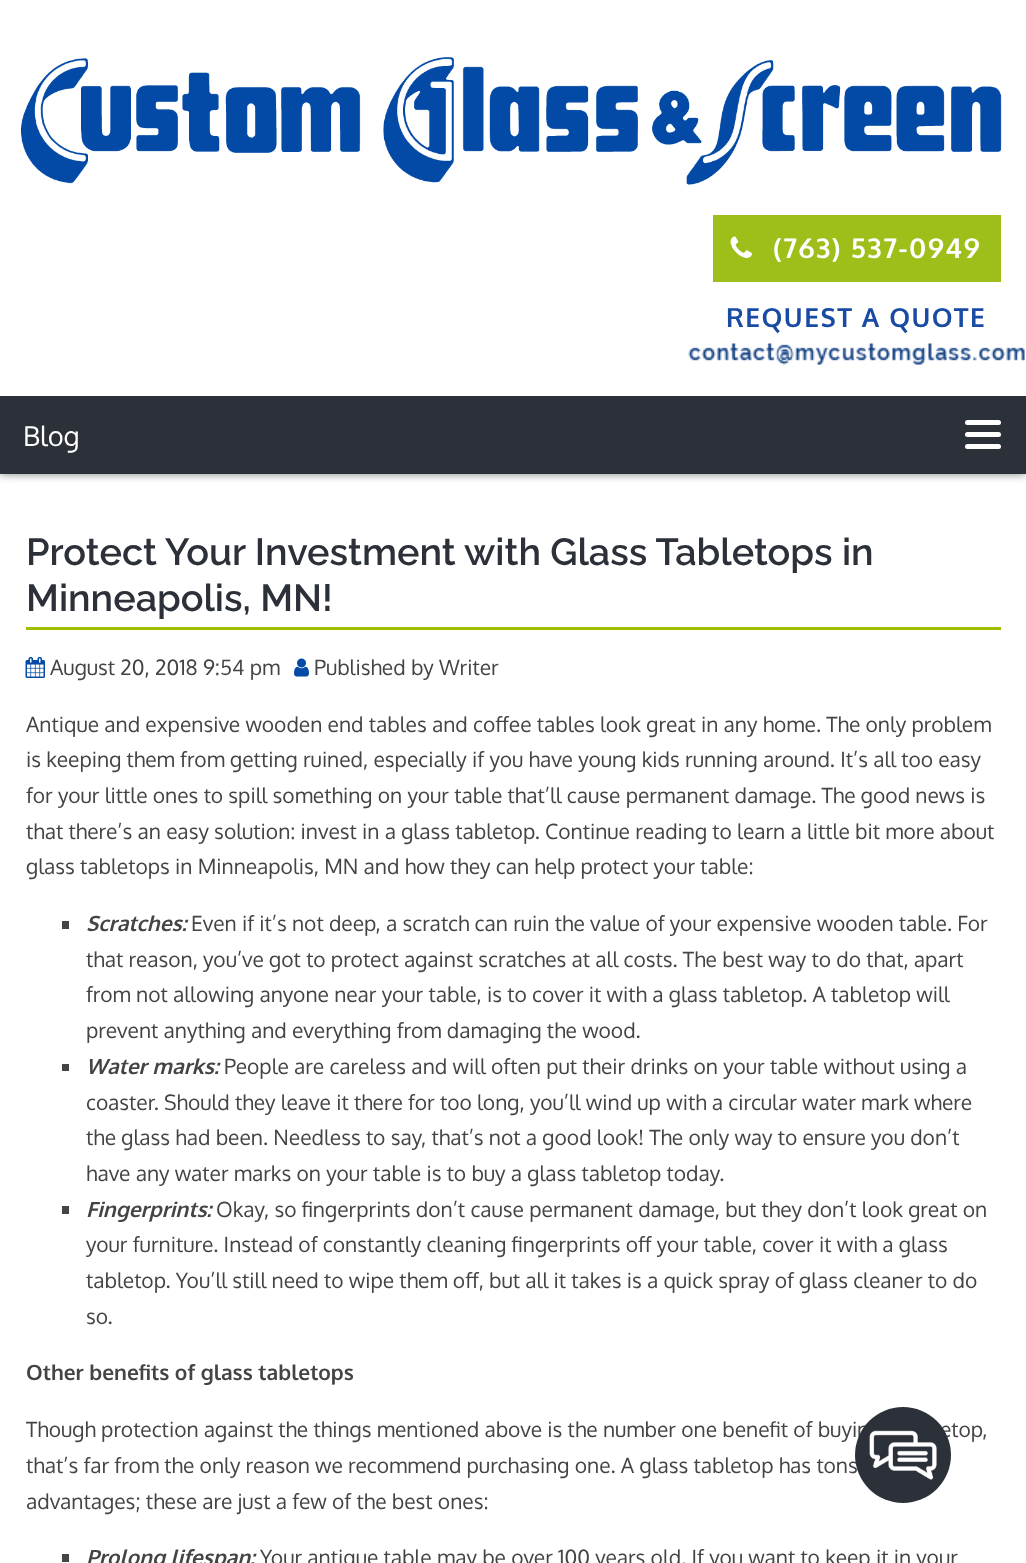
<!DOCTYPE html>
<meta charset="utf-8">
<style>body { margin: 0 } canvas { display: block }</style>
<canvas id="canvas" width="1026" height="1563"></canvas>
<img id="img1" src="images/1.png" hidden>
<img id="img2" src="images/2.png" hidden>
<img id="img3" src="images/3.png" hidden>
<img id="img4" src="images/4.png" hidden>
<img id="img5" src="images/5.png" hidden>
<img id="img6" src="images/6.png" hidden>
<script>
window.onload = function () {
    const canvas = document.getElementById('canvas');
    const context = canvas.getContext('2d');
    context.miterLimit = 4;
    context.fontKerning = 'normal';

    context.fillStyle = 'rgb(255, 255, 255)';
    context.fillRect(0, 0, 1026, 1563);
    context.save();
    context.beginPath();
    context.rect(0, 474, 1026, 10);
    context.clip();
    context.fillStyle = 'rgb(128, 128, 128)';
    context.filter = 'blur(5px)';
    context.beginPath();
    context.rect(0, 0, 1026, 474);
    context.fill();
    context.filter = 'none';
    context.restore();
    context.drawImage(document.getElementById('img1'), 21, 57, 981, 128);
    context.fillStyle = 'rgb(158, 191, 25)';
    context.fillRect(713, 215, 288, 67);
    context.drawImage(document.getElementById('img2'), 730, 236, 22, 22);
    context.drawImage(document.getElementById('img3'), 688, 343, 337, 22);
    context.fillStyle = 'rgb(44, 48, 56)';
    context.fillRect(0, 396, 1026, 78);
    context.fillStyle = 'rgb(255, 255, 255)';
    context.beginPath();
    context.roundRect(965, 420, 36, 5, 2.5);
    context.fill();
    context.beginPath();
    context.roundRect(965, 432, 36, 5, 2.5);
    context.fill();
    context.beginPath();
    context.roundRect(965, 444, 36, 5, 2.5);
    context.fill();
    context.fillStyle = 'rgb(157, 191, 0)';
    context.fillRect(26, 627, 975, 3);
    context.drawImage(document.getElementById('img4'), 25, 657, 20, 21);
    context.drawImage(document.getElementById('img5'), 294, 658, 15, 19);
    context.fillStyle = 'rgb(68, 68, 68)';
    context.fillRect(62, 921, 7, 8);
    context.fillRect(62, 1064, 7, 7);
    context.fillRect(62, 1206, 7, 8);
    context.fillRect(62, 1554, 7, 8);
    context.letterSpacing = '1.5px';
    context.font = 'bold 27.25px Oxygen';
    context.fillStyle = 'rgb(255, 255, 255)';
    context.fillText('(763) 537-0949', 773, 258);
    context.font = 'bold 26.25px Oxygen';
    context.fillStyle = 'rgb(25, 74, 164)';
    context.fillText('REQUEST A QUOTE', 726, 327);
    context.letterSpacing = '0px';
    context.font = '27.25px Oxygen';
    context.fillStyle = 'rgb(255, 255, 255)';
    context.fillText('Blog', 23, 446);
    context.font = '600 37.8px Raleway';
    context.fillStyle = 'rgb(44, 48, 56)';
    context.fillText('Protect Your Investment with Glass Tabletops in', 26, 565);
    context.fillText('Minneapolis, MN!', 26, 611);
    context.font = '21px Oxygen';
    context.fillStyle = 'rgb(68, 68, 68)';
    context.fillText('August 20, 2018 9:54 pm', 50, 675);
    context.fillText('Published by Writer', 314, 675);
    context.fillText('Antique and expensive wooden end tables and coffee tables look great in any home. The only problem', 26, 732);
    context.fillText('is keeping them from getting ruined, especially if you have young kids running around. It’s all too easy', 26, 767);
    context.fillText('for your little ones to spill something on your table that’ll cause permanent damage. The good news is', 26, 803);
    context.fillText('that there’s an easy solution: invest in a glass tabletop. Continue reading to learn a little bit more about', 26, 839);
    context.fillText('glass tabletops in Minneapolis, MN and how they can help protect your table:', 26, 874);
    context.font = 'italic bold 21px Oxygen';
    context.fillText('Scratches:', 86, 931);
    context.font = '21px Oxygen';
    context.fillText('Even if it’s not deep, a scratch can ruin the value of your expensive wooden table. For', 191, 931);
    context.fillText('that reason, you’ve got to protect against scratches at all costs. The best way to do that, apart', 86, 967);
    context.fillText('from not allowing anyone near your table, is to cover it with a glass tabletop. A tabletop will', 86, 1002);
    context.fillText('prevent anything and everything from damaging the wood.', 86, 1038);
    context.font = 'italic bold 21px Oxygen';
    context.fillText('Water marks:', 86, 1074);
    context.font = '21px Oxygen';
    context.fillText('People are careless and will often put their drinks on your table without using a', 224, 1074);
    context.fillText('coaster. Should they leave it there for too long, you’ll wind up with a circular water mark where', 86, 1110);
    context.fillText('the glass had been. Needless to say, that’s not a good look! The only way to ensure you don’t', 86, 1145);
    context.fillText('have any water marks on your table is to buy a glass tabletop today.', 86, 1181);
    context.font = 'italic bold 21px Oxygen';
    context.fillText('Fingerprints:', 86, 1217);
    context.font = '21px Oxygen';
    context.fillText('Okay, so fingerprints don’t cause permanent damage, but they don’t look great on', 216, 1217);
    context.fillText('your furniture. Instead of constantly cleaning fingerprints off your table, cover it with a glass', 86, 1252);
    context.fillText('tabletop. You’ll still need to wipe them off, but all it takes is a quick spray of glass cleaner to do', 86, 1288);
    context.fillText('so.', 86, 1324);
    context.font = 'bold 21px Oxygen';
    context.fillText('Other benefits of glass tabletops', 26, 1380);
    context.font = '21px Oxygen';
    context.fillText('Though protection against the things mentioned above is the number one benefit of buyin', 26, 1437);
    context.fillText('etop,', 940, 1437);
    context.fillText('that’s far from the only reason we recommend purchasing one. A glass tabletop has tons', 26, 1473);
    context.fillText('advantages; these are just a few of the best ones:', 26, 1509);
    context.font = 'italic bold 21px Oxygen';
    context.fillText('Prolong lifespan:', 86, 1565);
    context.font = '21px Oxygen';
    context.fillText('Your antique table may be over 100 years old. If you want to keep it in your', 260, 1565);
    context.fillStyle = 'rgb(44, 48, 56)';
    context.beginPath();
    context.arc(903, 1455, 48, 0, 2 * Math.PI);
    context.fill();
    context.drawImage(document.getElementById('img6'), 869, 1430, 68, 50);
};
</script>
